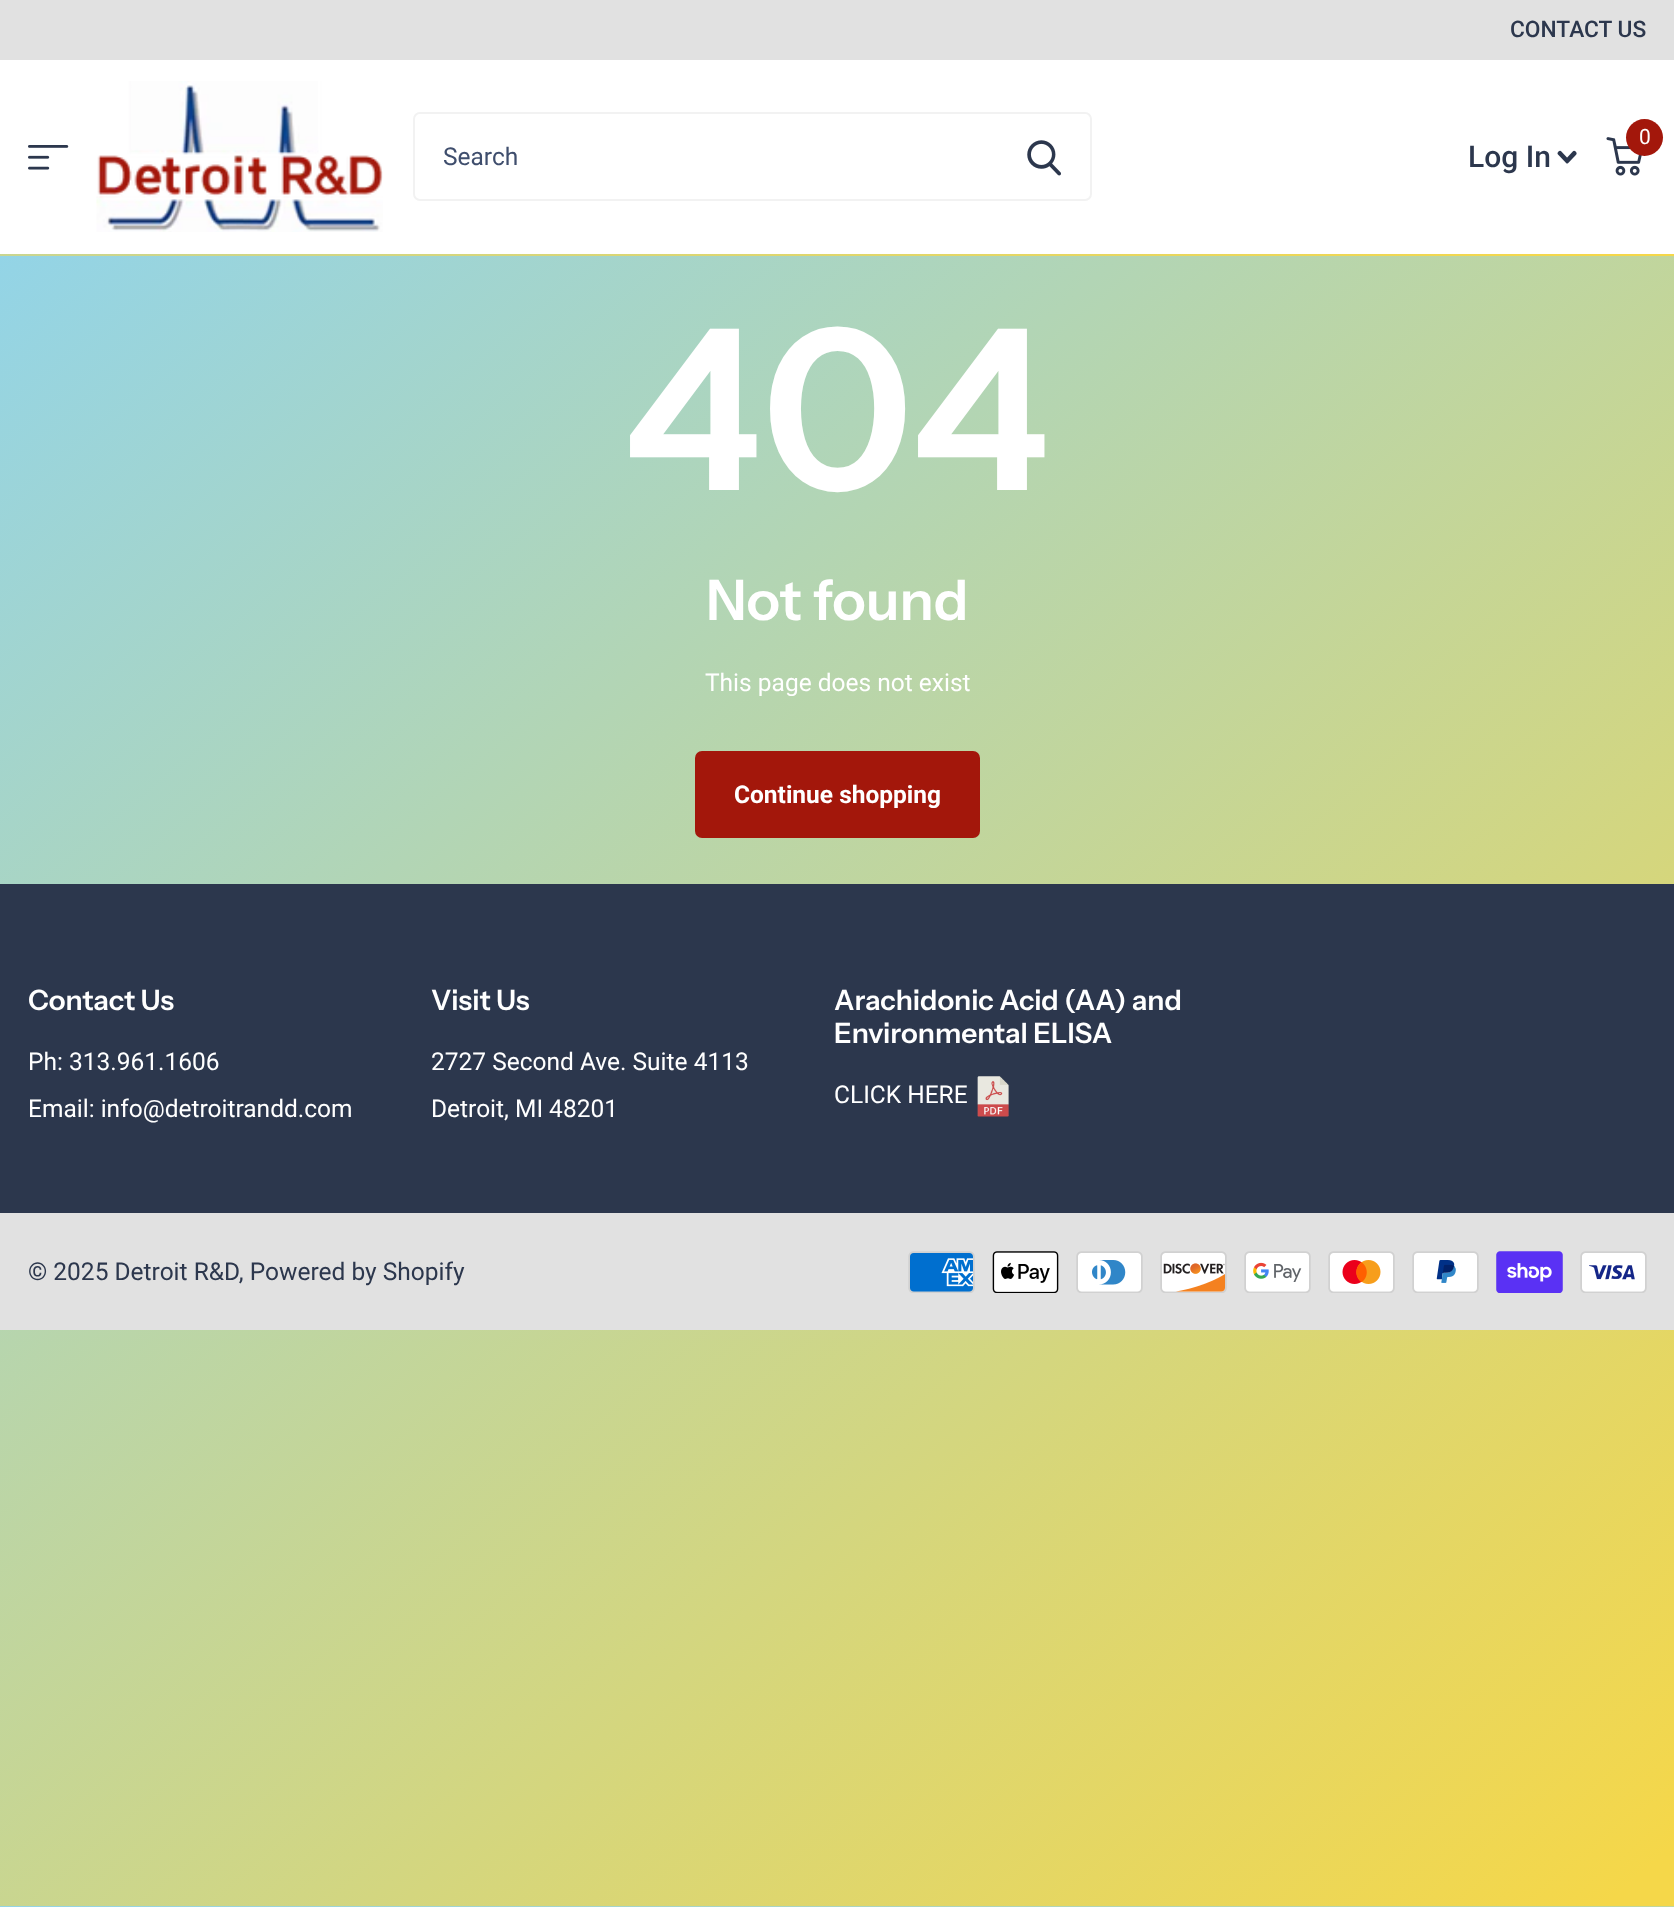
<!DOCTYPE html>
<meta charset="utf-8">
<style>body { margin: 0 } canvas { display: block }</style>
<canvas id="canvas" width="1674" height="1907"></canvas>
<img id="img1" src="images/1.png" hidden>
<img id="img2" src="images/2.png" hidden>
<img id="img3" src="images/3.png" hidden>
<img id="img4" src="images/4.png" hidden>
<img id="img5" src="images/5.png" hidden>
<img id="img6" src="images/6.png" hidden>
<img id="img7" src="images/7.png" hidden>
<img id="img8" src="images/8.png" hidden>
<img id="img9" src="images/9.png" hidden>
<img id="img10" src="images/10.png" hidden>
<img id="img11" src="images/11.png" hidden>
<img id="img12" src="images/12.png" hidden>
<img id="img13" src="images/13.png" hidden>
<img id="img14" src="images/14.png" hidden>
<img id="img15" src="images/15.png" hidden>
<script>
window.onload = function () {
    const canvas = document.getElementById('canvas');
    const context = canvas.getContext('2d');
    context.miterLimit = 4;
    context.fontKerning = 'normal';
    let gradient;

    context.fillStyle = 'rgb(255, 255, 255)';
    context.fillRect(0, 0, 1674, 1907);
    context.fillStyle = 'rgb(225, 225, 225)';
    context.fillRect(0, 0, 1674, 60);
    context.drawImage(document.getElementById('img1'), 28, 145, 41, 25);
    context.drawImage(document.getElementById('img2'), 96, 81, 287, 151);
    context.beginPath();
    context.roundRect(414, 113, 677, 87, 6);
    context.strokeStyle = 'rgb(242, 242, 242)';
    context.lineWidth = 2;
    context.stroke();
    context.drawImage(document.getElementById('img3'), 1027, 140, 34, 36);
    context.drawImage(document.getElementById('img4'), 1606, 137, 36, 39);
    context.fillStyle = 'rgb(163, 23, 11)';
    context.beginPath();
    context.arc(1644.5, 137.5, 18.5, 0, 2 * Math.PI);
    context.fill();
    context.drawImage(document.getElementById('img5'), 1557, 150, 20, 14);
    gradient = context.createLinearGradient(1624, 367, 51, -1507);
    gradient.addColorStop(0.04, 'rgb(245, 215, 73)');
    gradient.addColorStop(1, 'rgb(145, 212, 234)');
    context.fillStyle = gradient;
    context.fillRect(0, 254, 1674, 2);
    gradient = context.createLinearGradient(1624, 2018, 51, 144);
    gradient.addColorStop(0.04, 'rgb(245, 215, 73)');
    gradient.addColorStop(1, 'rgb(145, 212, 234)');
    context.fillStyle = gradient;
    context.fillRect(0, 256, 1674, 1650);
    gradient = context.createLinearGradient(1624, 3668, 51, 1794);
    gradient.addColorStop(0.04, 'rgb(245, 215, 73)');
    gradient.addColorStop(1, 'rgb(145, 212, 234)');
    context.fillStyle = gradient;
    context.fillRect(0, 1906, 1674, 1);
    context.fillStyle = 'rgb(163, 23, 11)';
    context.beginPath();
    context.roundRect(695, 751, 285, 87, 7);
    context.fill();
    context.fillStyle = 'rgb(44, 55, 77)';
    context.fillRect(0, 884, 1674, 329);
    context.drawImage(document.getElementById('img6'), 977, 1076, 32, 41);
    context.fillStyle = 'rgb(225, 225, 225)';
    context.fillRect(0, 1213, 1674, 117);
    context.drawImage(document.getElementById('img7'), 908, 1251, 67, 42);
    context.drawImage(document.getElementById('img8'), 992, 1251, 67, 42);
    context.drawImage(document.getElementById('img9'), 1076, 1251, 67, 42);
    context.drawImage(document.getElementById('img10'), 1160, 1251, 67, 42);
    context.drawImage(document.getElementById('img11'), 1244, 1251, 67, 42);
    context.drawImage(document.getElementById('img12'), 1328, 1251, 67, 42);
    context.drawImage(document.getElementById('img13'), 1412, 1251, 67, 42);
    context.drawImage(document.getElementById('img14'), 1496, 1251, 67, 42);
    context.drawImage(document.getElementById('img15'), 1580, 1251, 67, 42);
    context.font = '500 22.75px Roboto';
    context.fillStyle = 'rgb(44, 55, 77)';
    context.fillText('CONTACT US', 1510, 37);
    context.font = '24.5px Roboto';
    context.fillStyle = 'rgb(63, 78, 109)';
    context.fillText('Search', 443, 165);
    context.font = '21px Roboto';
    context.fillStyle = 'rgb(255, 255, 255)';
    context.fillText('0', 1639, 144);
    context.font = '500 30px Roboto';
    context.fillStyle = 'rgb(44, 55, 77)';
    context.fillText('Log In', 1468, 167);
    context.font = '600 224px Instrument Sans';
    context.fillStyle = 'rgb(255, 255, 255)';
    context.fillText('404', 624, 490);
    context.font = '600 56px Instrument Sans';
    context.fillText('Not found', 706, 620);
    context.font = '24.5px Roboto';
    context.fillText('This page does not exist', 705, 691);
    context.font = 'bold 24.5px Roboto';
    context.fillText('Continue shopping', 734, 803);
    context.font = '600 28px Instrument Sans';
    context.fillText('Contact Us', 28, 1010);
    context.font = '24.5px Roboto';
    context.fillText('Ph: 313.961.1606', 28, 1070);
    context.fillText('Email: info@detroitrandd.com', 28, 1117);
    context.font = '600 28px Instrument Sans';
    context.fillText('Visit Us', 431, 1010);
    context.font = '24.5px Roboto';
    context.fillText('2727 Second Ave. Suite 4113', 431, 1070);
    context.fillText('Detroit, MI 48201', 431, 1117);
    context.font = '600 28px Instrument Sans';
    context.fillText('Arachidonic Acid (AA) and', 834, 1010);
    context.fillText('Environmental ELISA', 834, 1043);
    context.font = '24.5px Roboto';
    context.fillText('CLICK HERE', 834, 1103);
    context.fillStyle = 'rgb(44, 55, 77)';
    context.fillText('© 2025 Detroit R&D, Powered by Shopify', 28, 1280);
};
</script>
